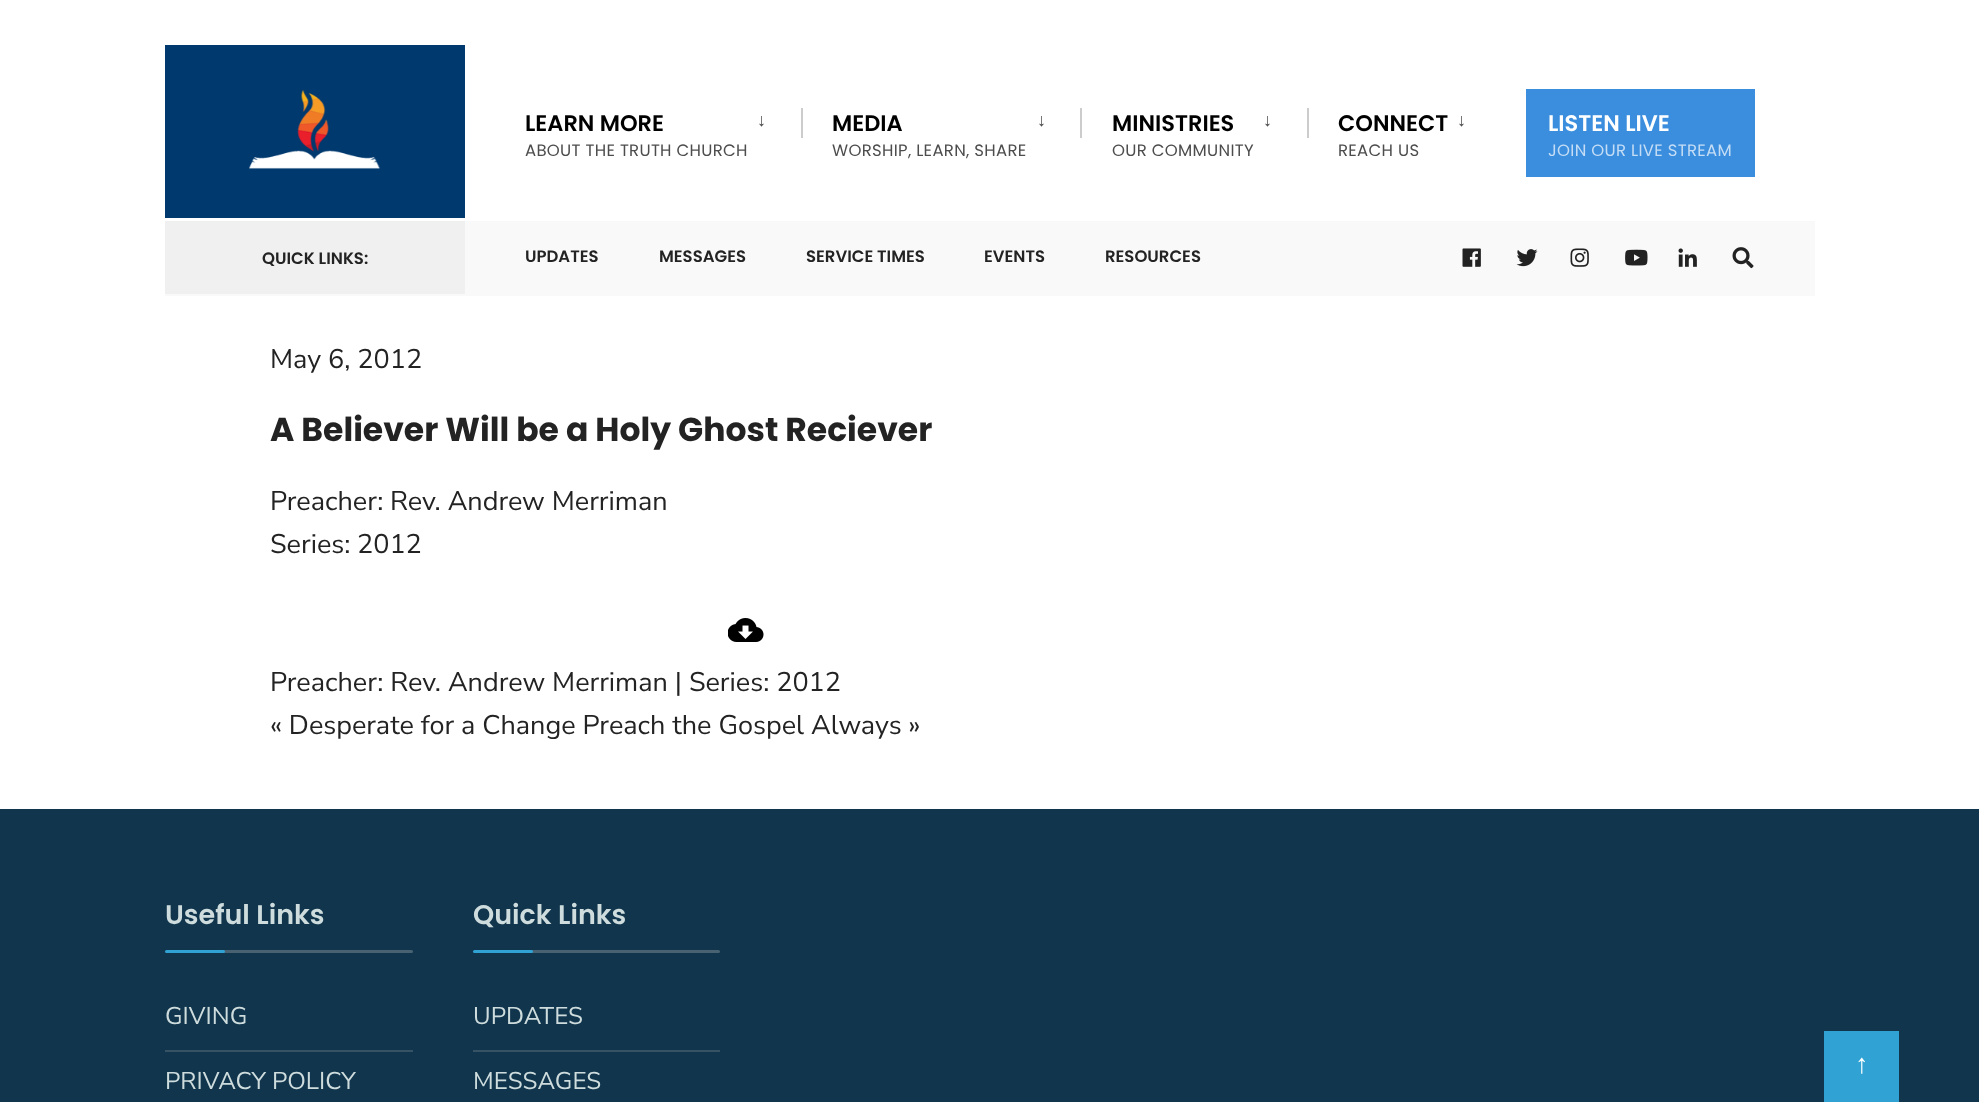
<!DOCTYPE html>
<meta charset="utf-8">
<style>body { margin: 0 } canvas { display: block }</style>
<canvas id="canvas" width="1979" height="1102"></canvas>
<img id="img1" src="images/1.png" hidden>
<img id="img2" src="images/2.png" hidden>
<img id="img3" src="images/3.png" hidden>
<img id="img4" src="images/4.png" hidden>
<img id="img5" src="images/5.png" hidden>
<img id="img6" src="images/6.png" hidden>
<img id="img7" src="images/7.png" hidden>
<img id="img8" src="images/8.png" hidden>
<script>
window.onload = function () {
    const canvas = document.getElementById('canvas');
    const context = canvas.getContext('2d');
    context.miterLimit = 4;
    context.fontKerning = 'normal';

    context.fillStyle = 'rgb(255, 255, 255)';
    context.fillRect(0, 0, 1979, 1102);
    context.fillStyle = 'rgb(0, 57, 110)';
    context.fillRect(165, 45, 300, 173);
    context.drawImage(document.getElementById('img1'), 249, 90, 131, 79);
    context.fillStyle = 'rgb(204, 204, 204)';
    context.fillRect(801, 108, 2, 30);
    context.fillRect(1080, 108, 2, 30);
    context.fillRect(1307, 108, 2, 30);
    context.fillStyle = 'rgb(59, 142, 222)';
    context.fillRect(1526, 89, 229, 88);
    context.fillStyle = 'rgb(249, 249, 249)';
    context.fillRect(165, 221, 1650, 75);
    context.fillStyle = 'rgb(240, 240, 240)';
    context.fillRect(165, 221, 300, 73);
    context.drawImage(document.getElementById('img2'), 1462, 248, 19, 19);
    context.drawImage(document.getElementById('img3'), 1516, 249, 22, 18);
    context.drawImage(document.getElementById('img4'), 1570, 248, 19, 19);
    context.drawImage(document.getElementById('img5'), 1625, 249, 23, 17);
    context.drawImage(document.getElementById('img6'), 1678, 248, 19, 19);
    context.drawImage(document.getElementById('img7'), 1732, 247, 22, 22);
    context.drawImage(document.getElementById('img8'), 728, 618, 36, 24);
    context.fillStyle = 'rgb(16, 53, 76)';
    context.fillRect(0, 809, 1979, 293);
    context.fillStyle = 'rgb(72, 98, 114)';
    context.beginPath();
    context.roundRect(222, 950, 191, 3, 1.5);
    context.fill();
    context.fillStyle = 'rgb(48, 162, 211)';
    context.beginPath();
    context.roundRect(165, 950, 60, 3, 1.5);
    context.fill();
    context.fillStyle = 'rgb(54, 83, 102)';
    context.fillRect(165, 1050, 248, 2);
    context.fillStyle = 'rgb(72, 98, 114)';
    context.beginPath();
    context.roundRect(530, 950, 190, 3, 1.5);
    context.fill();
    context.fillStyle = 'rgb(48, 162, 211)';
    context.beginPath();
    context.roundRect(473, 950, 60, 3, 1.5);
    context.fill();
    context.fillStyle = 'rgb(54, 83, 102)';
    context.fillRect(473, 1050, 247, 2);
    context.fillStyle = 'rgb(48, 162, 211)';
    context.fillRect(1824, 1031, 75, 71);
    context.font = '600 22.5px Poppins';
    context.fillStyle = 'rgb(0, 0, 0)';
    context.fillText('LEARN MORE', 525, 131);
    context.font = '18px Liberation Sans';
    context.fillStyle = 'rgb(77, 77, 77)';
    context.fillText('↓', 757, 126);
    context.letterSpacing = '0.3px';
    context.font = '16.5px Poppins';
    context.fillText('ABOUT THE TRUTH CHURCH', 525, 156);
    context.letterSpacing = '0px';
    context.font = '600 22.5px Poppins';
    context.fillStyle = 'rgb(0, 0, 0)';
    context.fillText('MEDIA', 832, 131);
    context.font = '18px Liberation Sans';
    context.fillStyle = 'rgb(77, 77, 77)';
    context.fillText('↓', 1037, 126);
    context.letterSpacing = '0.3px';
    context.font = '16.5px Poppins';
    context.fillText('WORSHIP, LEARN, SHARE', 832, 156);
    context.letterSpacing = '0px';
    context.font = '600 22.5px Poppins';
    context.fillStyle = 'rgb(0, 0, 0)';
    context.fillText('MINISTRIES', 1112, 131);
    context.font = '18px Liberation Sans';
    context.fillStyle = 'rgb(77, 77, 77)';
    context.fillText('↓', 1263, 126);
    context.letterSpacing = '0.3px';
    context.font = '16.5px Poppins';
    context.fillText('OUR COMMUNITY', 1112, 156);
    context.letterSpacing = '0px';
    context.font = '600 22.5px Poppins';
    context.fillStyle = 'rgb(0, 0, 0)';
    context.fillText('CONNECT', 1338, 131);
    context.font = '18px Liberation Sans';
    context.fillStyle = 'rgb(77, 77, 77)';
    context.fillText('↓', 1457, 126);
    context.letterSpacing = '0.3px';
    context.font = '16.5px Poppins';
    context.fillText('REACH US', 1338, 156);
    context.letterSpacing = '0px';
    context.font = '600 22.5px Poppins';
    context.fillStyle = 'rgb(255, 255, 255)';
    context.fillText('LISTEN LIVE', 1548, 131);
    context.letterSpacing = '0.3px';
    context.font = '16.5px Poppins';
    context.fillStyle = 'rgb(196, 221, 245)';
    context.fillText('JOIN OUR LIVE STREAM', 1548, 156);
    context.letterSpacing = '0px';
    context.font = '600 16.5px Poppins';
    context.fillStyle = 'rgb(35, 35, 35)';
    context.fillText('QUICK LINKS:', 262, 264);
    context.fillText('UPDATES', 525, 262);
    context.fillText('MESSAGES', 659, 262);
    context.fillText('SERVICE TIMES', 806, 262);
    context.fillText('EVENTS', 984, 262);
    context.fillText('RESOURCES', 1105, 262);
    context.font = '27px Nunito Sans';
    context.fillText('May 6, 2012', 270, 368);
    context.font = 'bold 33px Poppins';
    context.fillText('A Believer Will be a Holy Ghost Reciever', 270, 441);
    context.font = '27px Nunito Sans';
    context.fillText('Preacher:', 270, 510);
    context.fillText('Rev. Andrew Merriman', 390, 510);
    context.fillText('Series:', 270, 553);
    context.fillText('2012', 357, 553);
    context.fillText('Preacher: Rev. Andrew Merriman | Series: 2012', 270, 691);
    context.fillText('« Desperate for a Change Preach the Gospel Always »', 270, 734);
    context.font = '600 27px Poppins';
    context.fillStyle = 'rgb(206, 220, 221)';
    context.fillText('Useful Links', 165, 924);
    context.font = '24.25px Nunito Sans';
    context.fillText('GIVING', 165, 1024);
    context.fillText('PRIVACY POLICY', 165, 1089);
    context.font = '600 27px Poppins';
    context.fillText('Quick Links', 473, 924);
    context.font = '24.25px Nunito Sans';
    context.fillText('UPDATES', 473, 1024);
    context.fillText('MESSAGES', 473, 1089);
    context.font = '27px Liberation Serif';
    context.fillStyle = 'rgb(255, 255, 255)';
    context.fillText('↑', 1855, 1073);
};
</script>
